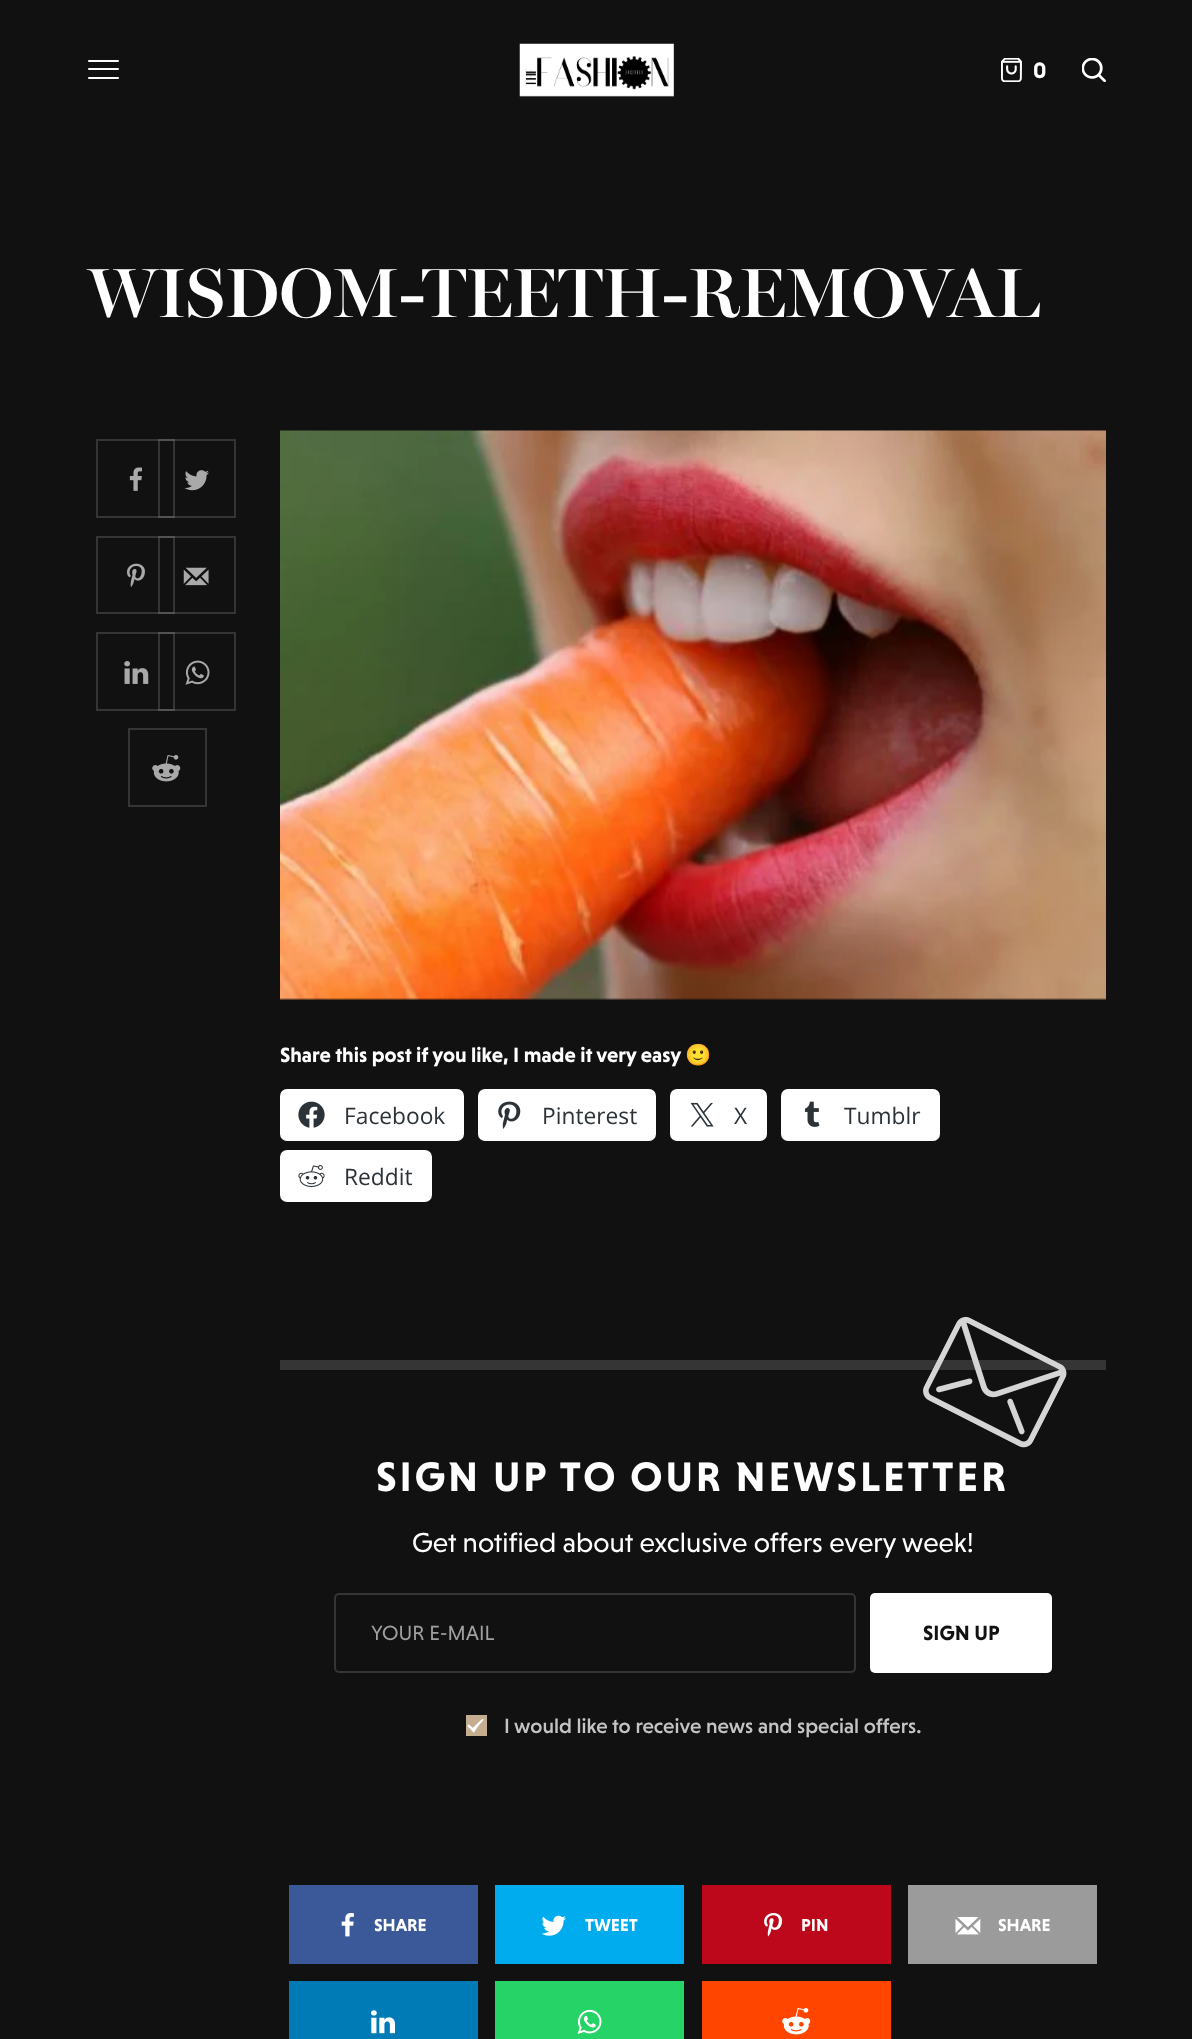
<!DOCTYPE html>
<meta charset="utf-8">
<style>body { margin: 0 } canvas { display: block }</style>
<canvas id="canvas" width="1192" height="2039"></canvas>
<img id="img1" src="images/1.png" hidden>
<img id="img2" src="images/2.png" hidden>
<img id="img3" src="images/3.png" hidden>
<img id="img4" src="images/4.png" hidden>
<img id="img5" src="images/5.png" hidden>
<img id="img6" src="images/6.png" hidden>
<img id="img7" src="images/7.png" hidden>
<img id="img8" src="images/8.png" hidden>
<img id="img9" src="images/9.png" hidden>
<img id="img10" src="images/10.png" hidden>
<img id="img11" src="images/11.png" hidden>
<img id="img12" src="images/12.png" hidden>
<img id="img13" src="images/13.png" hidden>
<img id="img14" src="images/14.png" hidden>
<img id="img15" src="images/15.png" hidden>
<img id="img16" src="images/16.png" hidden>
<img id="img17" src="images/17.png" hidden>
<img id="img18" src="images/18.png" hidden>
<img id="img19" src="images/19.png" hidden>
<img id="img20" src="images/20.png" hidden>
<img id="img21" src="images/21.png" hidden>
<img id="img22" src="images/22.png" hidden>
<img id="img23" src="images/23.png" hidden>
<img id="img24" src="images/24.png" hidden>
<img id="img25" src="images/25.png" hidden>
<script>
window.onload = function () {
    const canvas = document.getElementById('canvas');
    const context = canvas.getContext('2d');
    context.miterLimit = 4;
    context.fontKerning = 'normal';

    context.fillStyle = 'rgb(17, 17, 17)';
    context.fillRect(0, 0, 1192, 2039);
    context.fillStyle = 'rgb(255, 255, 255)';
    context.beginPath();
    context.roundRect(88, 60, 31, 2, 1);
    context.fill();
    context.beginPath();
    context.roundRect(88, 68, 31, 2, 1);
    context.fill();
    context.beginPath();
    context.roundRect(88, 77, 31, 2, 1);
    context.fill();
    context.drawImage(document.getElementById('img1'), 519, 43, 155, 54);
    context.drawImage(document.getElementById('img2'), 1001, 58, 21, 24);
    context.drawImage(document.getElementById('img3'), 1082, 58, 24, 24);
    context.strokeStyle = 'rgb(53, 53, 53)';
    context.lineWidth = 2;
    context.strokeRect(97, 440, 77, 77);
    context.drawImage(document.getElementById('img4'), 129, 467, 13, 24);
    context.strokeStyle = 'rgba(255, 255, 255, 0.15)';
    context.strokeRect(159, 440, 76, 77);
    context.drawImage(document.getElementById('img5'), 184, 470, 25, 21);
    context.strokeStyle = 'rgb(53, 53, 53)';
    context.strokeRect(97, 537, 77, 76);
    context.drawImage(document.getElementById('img6'), 127, 563, 18, 24);
    context.strokeStyle = 'rgba(255, 255, 255, 0.15)';
    context.strokeRect(159, 537, 76, 76);
    context.drawImage(document.getElementById('img7'), 183, 567, 26, 19);
    context.strokeStyle = 'rgb(53, 53, 53)';
    context.strokeRect(97, 633, 77, 77);
    context.drawImage(document.getElementById('img8'), 124, 661, 25, 23);
    context.strokeStyle = 'rgba(255, 255, 255, 0.15)';
    context.strokeRect(159, 633, 76, 77);
    context.drawImage(document.getElementById('img9'), 185, 660, 25, 25);
    context.strokeStyle = 'rgb(53, 53, 53)';
    context.strokeRect(129, 729, 77, 77);
    context.drawImage(document.getElementById('img10'), 152, 755, 29, 27);
    context.drawImage(document.getElementById('img11'), 280, 430, 826, 570);
    context.beginPath();
    context.roundRect(280, 1089, 184, 52, 7);
    context.fill();
    context.drawImage(document.getElementById('img12'), 298, 1101, 27, 27);
    context.beginPath();
    context.roundRect(478, 1089, 178, 52, 7);
    context.fill();
    context.drawImage(document.getElementById('img13'), 498, 1101, 23, 28);
    context.beginPath();
    context.roundRect(670, 1089, 97, 52, 7);
    context.fill();
    context.drawImage(document.getElementById('img14'), 690, 1102, 24, 25);
    context.beginPath();
    context.roundRect(781, 1089, 159, 52, 7);
    context.fill();
    context.drawImage(document.getElementById('img15'), 804, 1101, 16, 26);
    context.beginPath();
    context.roundRect(280, 1150, 152, 52, 7);
    context.fill();
    context.drawImage(document.getElementById('img16'), 298, 1165, 27, 22);
    context.fillStyle = 'rgb(53, 53, 53)';
    context.fillRect(280, 1360, 826, 10);
    context.drawImage(document.getElementById('img17'), 923, 1316, 144, 132);
    context.beginPath();
    context.roundRect(335, 1594, 520, 78, 4);
    context.stroke();
    context.fillStyle = 'rgb(255, 255, 255)';
    context.beginPath();
    context.roundRect(870, 1593, 182, 80, 5);
    context.fill();
    context.fillStyle = 'rgb(197, 173, 144)';
    context.fillRect(466, 1715, 21, 21);
    context.drawImage(document.getElementById('img18'), 467, 1718, 17, 15);
    context.fillStyle = 'rgb(59, 89, 152)';
    context.fillRect(289, 1885, 189, 79);
    context.drawImage(document.getElementById('img19'), 341, 1913, 13, 24);
    context.fillStyle = 'rgb(0, 172, 237)';
    context.fillRect(495, 1885, 189, 79);
    context.drawImage(document.getElementById('img20'), 541, 1915, 25, 21);
    context.fillStyle = 'rgb(189, 8, 28)';
    context.fillRect(702, 1885, 189, 79);
    context.drawImage(document.getElementById('img21'), 764, 1913, 19, 24);
    context.fillStyle = 'rgb(155, 155, 155)';
    context.fillRect(908, 1885, 189, 79);
    context.drawImage(document.getElementById('img22'), 955, 1917, 26, 18);
    context.fillStyle = 'rgb(0, 123, 182)';
    context.fillRect(289, 1981, 189, 58);
    context.drawImage(document.getElementById('img23'), 371, 2010, 24, 24);
    context.fillStyle = 'rgb(37, 211, 102)';
    context.fillRect(495, 1981, 189, 58);
    context.drawImage(document.getElementById('img24'), 577, 2009, 25, 25);
    context.fillStyle = 'rgb(255, 69, 0)';
    context.fillRect(702, 1981, 189, 58);
    context.drawImage(document.getElementById('img25'), 782, 2008, 29, 27);
    context.font = 'bold 22.75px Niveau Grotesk';
    context.fillStyle = 'rgb(255, 255, 255)';
    context.fillText('0', 1033, 78);
    context.font = '600 70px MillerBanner';
    context.fillText('WISDOM-TEETH-REMOVAL', 88, 317);
    context.font = 'bold 21px Niveau Grotesk';
    context.fillText('Share this post if you like, I made it very easy', 280, 1062);
    context.font = 'bold 21px Noto Color Emoji';
    context.fillText('🙂', 685, 1062);
    context.font = '22.75px Open Sans';
    context.fillStyle = 'rgb(44, 51, 56)';
    context.fillText('Facebook', 344, 1124);
    context.fillText('Pinterest', 542, 1124);
    context.fillText('X', 734, 1124);
    context.fillText('Tumblr', 844, 1124);
    context.fillText('Reddit', 344, 1185);
    context.letterSpacing = '2.9px';
    context.font = 'bold 42px Niveau Grotesk';
    context.fillStyle = 'rgb(255, 255, 255)';
    context.fillText('SIGN UP TO OUR NEWSLETTER', 376, 1491);
    context.letterSpacing = '0px';
    context.font = '28px Niveau Grotesk';
    context.fillText('Get notified about exclusive offers every week!', 412, 1552);
    context.font = '21px Niveau Grotesk';
    context.fillStyle = 'rgb(160, 160, 160)';
    context.fillText('YOUR E-MAIL', 371, 1640);
    context.font = 'bold 21px Niveau Grotesk';
    context.fillStyle = 'rgb(17, 17, 17)';
    context.fillText('SIGN UP', 923, 1640);
    context.font = '500 21px Niveau Grotesk';
    context.fillStyle = 'rgb(196, 196, 196)';
    context.fillText('I would like to receive news and special offers.', 504, 1733);
    context.font = 'bold 17.5px Niveau Grotesk';
    context.fillStyle = 'rgb(255, 255, 255)';
    context.fillText('SHARE', 374, 1931);
    context.fillText('TWEET', 585, 1931);
    context.fillText('PIN', 801, 1931);
    context.fillText('SHARE', 998, 1931);
};
</script>
